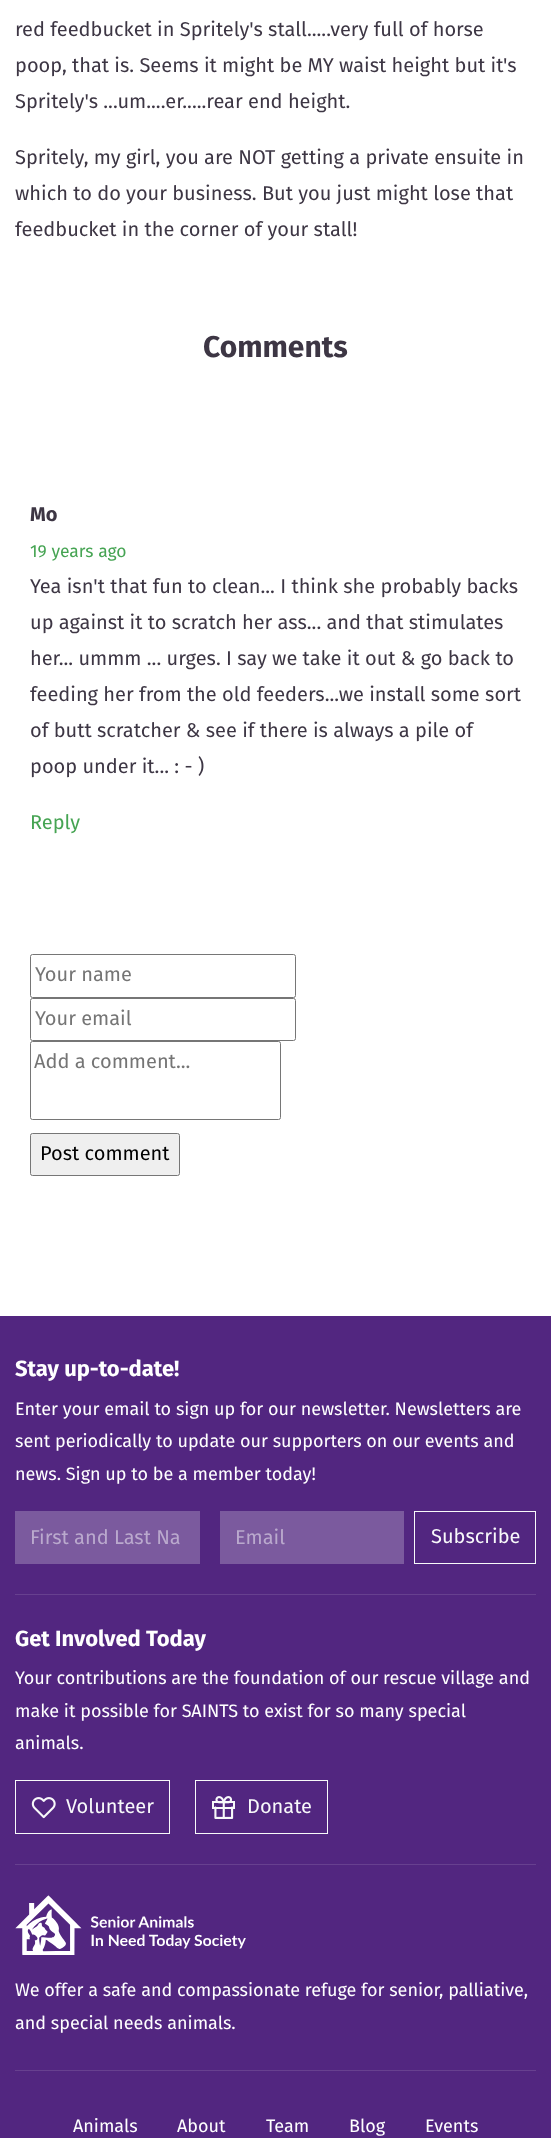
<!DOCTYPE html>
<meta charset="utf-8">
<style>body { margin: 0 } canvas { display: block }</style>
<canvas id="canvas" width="551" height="2138"></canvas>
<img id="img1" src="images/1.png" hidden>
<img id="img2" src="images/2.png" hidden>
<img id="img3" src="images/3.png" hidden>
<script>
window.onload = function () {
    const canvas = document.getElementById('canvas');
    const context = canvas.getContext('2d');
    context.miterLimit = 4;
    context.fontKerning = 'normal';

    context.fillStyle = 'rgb(255, 255, 255)';
    context.fillRect(0, 0, 551, 2138);
    context.beginPath();
    context.roundRect(30.5, 954.5, 265, 43, 2);
    context.strokeStyle = 'rgb(118, 118, 118)';
    context.stroke();
    context.beginPath();
    context.roundRect(30.5, 998.5, 265, 42, 2);
    context.stroke();
    context.beginPath();
    context.roundRect(30.5, 1041.5, 250, 78, 2);
    context.stroke();
    context.fillStyle = 'rgb(239, 239, 239)';
    context.beginPath();
    context.roundRect(30.5, 1133.5, 149, 42, 2);
    context.fill();
    context.stroke();
    context.fillStyle = 'rgb(82, 38, 128)';
    context.fillRect(0, 1316, 551, 822);
    context.fillStyle = 'rgb(123, 90, 158)';
    context.fillRect(15, 1511, 185, 53);
    context.fillRect(220, 1511, 184, 53);
    context.strokeStyle = 'rgb(248, 249, 250)';
    context.strokeRect(414.5, 1511.5, 121, 52);
    context.fillStyle = 'rgb(103, 64, 143)';
    context.fillRect(15, 1594, 521, 1);
    context.strokeRect(15.5, 1780.5, 154, 53);
    context.drawImage(document.getElementById('img1'), 31, 1797, 25, 22);
    context.strokeRect(195.5, 1780.5, 132, 53);
    context.drawImage(document.getElementById('img2'), 212, 1796, 23, 23);
    context.fillRect(15, 1864, 521, 1);
    context.drawImage(document.getElementById('img3'), 15, 1895, 231, 60);
    context.fillRect(15, 2070, 521, 1);
    context.font = '20px Fira Sans';
    context.fillStyle = 'rgb(61, 54, 68)';
    context.fillText('red feedbucket in Spritely\'s stall.....very full of horse', 15, 36);
    context.fillText('poop, that is. Seems it might be MY waist height but it\'s', 15, 72);
    context.fillText('Spritely\'s ...um....er.....rear end height.', 15, 108);
    context.fillText('Spritely, my girl, you are NOT getting a private ensuite in', 15, 164);
    context.fillText('which to do your business. But you just might lose that', 15, 200);
    context.fillText('feedbucket in the corner of your stall!', 15, 236);
    context.font = 'bold 30px Fira Sans';
    context.fillText('Comments', 203, 357);
    context.font = 'bold 20px Fira Sans';
    context.fillText('Mo', 30, 521);
    context.font = '17.5px Fira Sans';
    context.fillStyle = 'rgb(70, 164, 83)';
    context.fillText('19 years ago', 30, 557);
    context.font = '20px Fira Sans';
    context.fillStyle = 'rgb(61, 54, 68)';
    context.fillText('Yea isn\'t that fun to clean... I think she probably backs', 30, 593);
    context.fillText('up against it to scratch her ass... and that stimulates', 30, 629);
    context.fillText('her... ummm ... urges. I say we take it out & go back to', 30, 665);
    context.fillText('feeding her from the old feeders...we install some sort', 30, 701);
    context.fillText('of butt scratcher & see if there is always a pile of', 30, 737);
    context.fillText('poop under it... : - )', 30, 773);
    context.fillStyle = 'rgb(70, 164, 83)';
    context.fillText('Reply', 30, 829);
    context.fillStyle = 'rgb(117, 117, 117)';
    context.fillText('Your name', 35, 981);
    context.fillText('Your email', 35, 1025);
    context.fillText('Add a comment...', 34, 1068);
    context.fillStyle = 'rgb(0, 0, 0)';
    context.fillText('Post comment', 40, 1160);
    context.font = 'bold 22px Fira Sans';
    context.fillStyle = 'rgb(255, 255, 255)';
    context.fillText('Stay up-to-date!', 15, 1376);
    context.font = '18px Fira Sans';
    context.fillText('Enter your email to sign up for our newsletter. Newsletters are', 15, 1415);
    context.fillText('sent periodically to update our supporters on our events and', 15, 1447);
    context.fillText('news. Sign up to be a member today!', 15, 1480);
    context.font = '20px Fira Sans';
    context.fillStyle = 'rgb(186, 169, 205)';
    context.fillText('First and Last Na', 30, 1544);
    context.fillText('Email', 235, 1544);
    context.fillStyle = 'rgb(248, 249, 250)';
    context.fillText('Subscribe', 431, 1543);
    context.font = 'bold 22px Fira Sans';
    context.fillStyle = 'rgb(255, 255, 255)';
    context.fillText('Get Involved Today', 15, 1646);
    context.font = '18px Fira Sans';
    context.fillText('Your contributions are the foundation of our rescue village and', 15, 1684);
    context.fillText('make it possible for SAINTS to exist for so many special', 15, 1717);
    context.fillText('animals.', 15, 1749);
    context.font = '20px Fira Sans';
    context.fillStyle = 'rgb(248, 249, 250)';
    context.fillText('Volunteer', 66, 1813);
    context.fillText('Donate', 247, 1813);
    context.font = '18px Fira Sans';
    context.fillStyle = 'rgb(255, 255, 255)';
    context.fillText('We offer a safe and compassionate refuge for senior, palliative,', 15, 1996);
    context.fillText('and special needs animals.', 15, 2029);
    context.fillText('Animals', 73, 2132);
    context.fillText('About', 177, 2132);
    context.fillText('Team', 266, 2132);
    context.fillText('Blog', 349, 2132);
    context.fillText('Events', 425, 2132);
};
</script>
